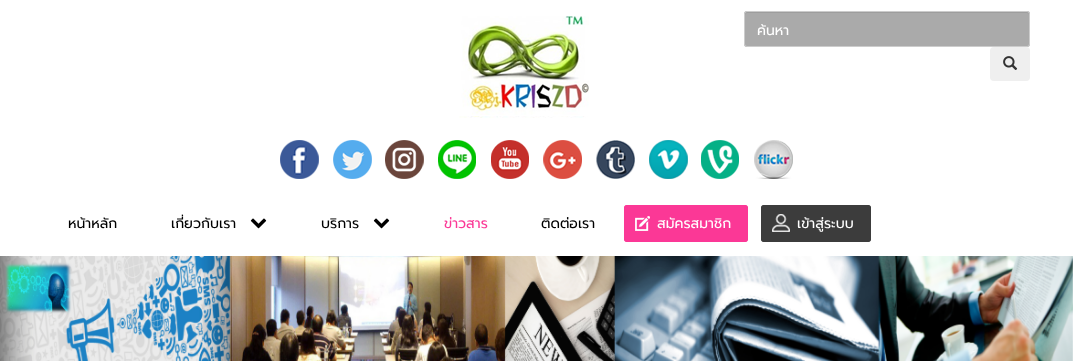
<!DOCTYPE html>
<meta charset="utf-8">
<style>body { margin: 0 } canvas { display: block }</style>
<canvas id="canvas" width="1073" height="361"></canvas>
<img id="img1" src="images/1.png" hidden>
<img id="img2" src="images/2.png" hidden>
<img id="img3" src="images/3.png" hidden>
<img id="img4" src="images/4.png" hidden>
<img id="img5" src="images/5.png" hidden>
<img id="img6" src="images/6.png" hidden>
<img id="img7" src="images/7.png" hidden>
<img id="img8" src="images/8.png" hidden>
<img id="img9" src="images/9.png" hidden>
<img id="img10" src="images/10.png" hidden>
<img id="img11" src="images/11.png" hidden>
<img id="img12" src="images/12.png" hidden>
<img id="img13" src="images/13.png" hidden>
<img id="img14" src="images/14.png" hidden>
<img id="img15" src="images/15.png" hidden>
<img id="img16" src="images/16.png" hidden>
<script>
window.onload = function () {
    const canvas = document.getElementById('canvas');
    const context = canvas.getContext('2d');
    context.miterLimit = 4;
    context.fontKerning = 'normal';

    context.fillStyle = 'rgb(255, 255, 255)';
    context.fillRect(0, 0, 1073, 361);
    context.drawImage(document.getElementById('img1'), 459, 16, 130, 102);
    context.fillStyle = 'rgb(170, 170, 170)';
    context.beginPath();
    context.roundRect(744, 11, 286, 36, 3);
    context.fill();
    context.fillStyle = 'rgb(157, 157, 157)';
    context.beginPath();
    context.moveTo(747, 13);
    context.lineTo(1027, 13);
    context.bezierCurveTo(1028, 13, 1029, 14, 1029, 15);
    context.bezierCurveTo(1029, 14, 1029, 12, 1027, 12);
    context.lineTo(747, 12);
    context.bezierCurveTo(745, 12, 745, 14, 745, 15);
    context.bezierCurveTo(745, 14, 746, 13, 747, 13);
    context.closePath();
    context.fill();
    context.beginPath();
    context.roundRect(744.5, 11.5, 285, 35, 2.5);
    context.strokeStyle = 'rgb(204, 204, 204)';
    context.stroke();
    context.fillStyle = 'rgb(239, 239, 239)';
    context.beginPath();
    context.roundRect(990, 47, 40, 34, 4);
    context.fill();
    context.drawImage(document.getElementById('img2'), 1003, 56, 15, 14);
    context.drawImage(document.getElementById('img3'), 280, 140, 39, 39);
    context.drawImage(document.getElementById('img4'), 333, 140, 39, 39);
    context.drawImage(document.getElementById('img5'), 385, 140, 39, 39);
    context.drawImage(document.getElementById('img6'), 438, 140, 38, 39);
    context.drawImage(document.getElementById('img7'), 491, 140, 38, 39);
    context.drawImage(document.getElementById('img8'), 543, 140, 39, 39);
    context.drawImage(document.getElementById('img9'), 596, 140, 39, 39);
    context.drawImage(document.getElementById('img10'), 649, 140, 39, 39);
    context.drawImage(document.getElementById('img11'), 701, 140, 38, 39);
    context.drawImage(document.getElementById('img12'), 754, 140, 39, 39);
    context.drawImage(document.getElementById('img13'), 250, 218, 17, 11);
    context.drawImage(document.getElementById('img13'), 373, 218, 17, 11);
    context.fillStyle = 'rgb(251, 56, 150)';
    context.beginPath();
    context.roundRect(624, 205, 124, 37, 3);
    context.fill();
    context.drawImage(document.getElementById('img14'), 635, 216, 15, 15);
    context.beginPath();
    context.roundRect(624.5, 205.5, 123, 36, 2.5);
    context.strokeStyle = 'rgb(251, 56, 150)';
    context.stroke();
    context.fillStyle = 'rgb(60, 60, 60)';
    context.beginPath();
    context.roundRect(761, 205, 110, 37, 3);
    context.fill();
    context.drawImage(document.getElementById('img15'), 772, 214, 18, 18);
    context.beginPath();
    context.roundRect(761.5, 205.5, 109, 36, 2.5);
    context.strokeStyle = 'rgb(60, 60, 60)';
    context.stroke();
    context.drawImage(document.getElementById('img16'), 0, 256, 1073, 105);
    context.save();
    context.beginPath();
    context.rect(757, 20, 222, 21);
    context.clip();
    context.font = '14px Prompt';
    context.fillStyle = 'rgb(255, 255, 255)';
    context.fillText('ค้นหา', 757, 35);
    context.restore();
    context.font = '14px Prompt';
    context.fillStyle = 'rgb(0, 0, 0)';
    context.fillText('หน้าหลัก', 68, 228);
    context.fillText('เกี่ยวกับเรา', 171, 228);
    context.fillText('บริการ', 321, 228);
    context.fillStyle = 'rgb(251, 56, 150)';
    context.fillText('ข่าวสาร', 444, 228);
    context.fillStyle = 'rgb(0, 0, 0)';
    context.fillText('ติดต่อเรา', 541, 228);
    context.fillStyle = 'rgb(255, 255, 255)';
    context.fillText('สมัครสมาชิก', 657, 228);
    context.fillText('เข้าสู่ระบบ', 797, 228);
};
</script>
